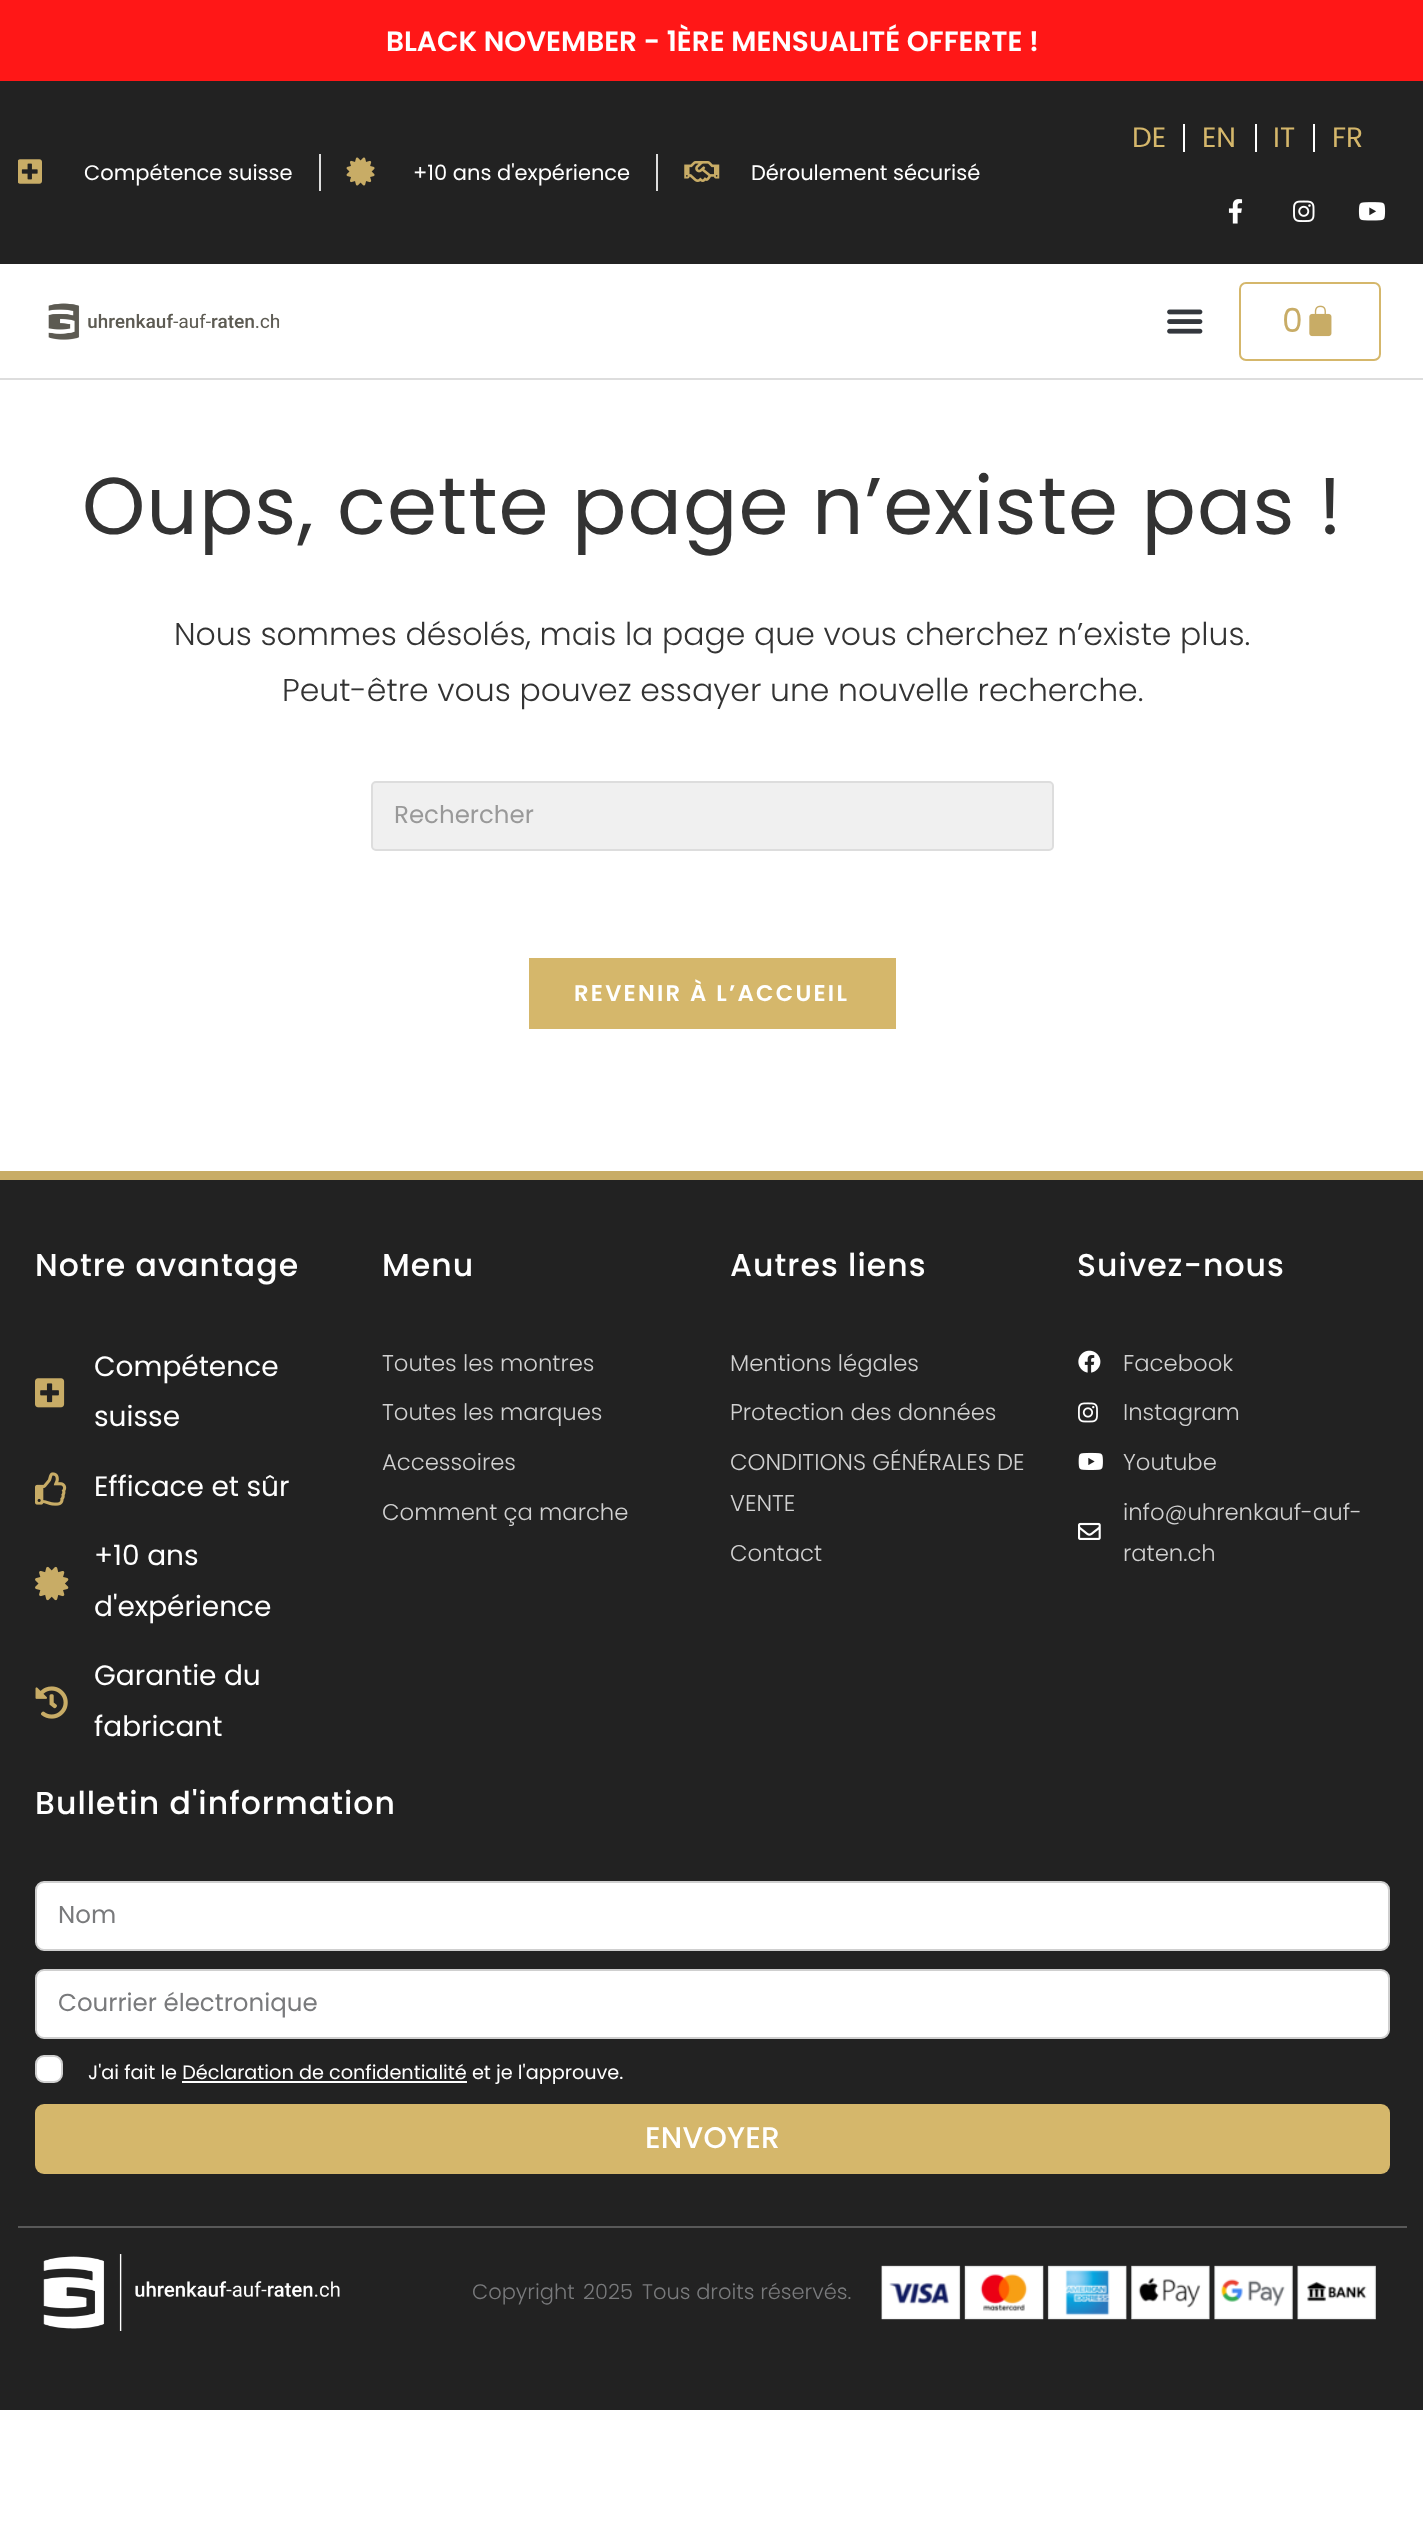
<!DOCTYPE html>
<meta charset="utf-8">
<style>body { margin: 0 } canvas { display: block }</style>
<canvas id="canvas" width="1423" height="2537"></canvas>
<img id="img1" src="images/1.png" hidden>
<img id="img2" src="images/2.png" hidden>
<img id="img3" src="images/3.png" hidden>
<img id="img4" src="images/4.png" hidden>
<img id="img5" src="images/5.png" hidden>
<img id="img6" src="images/6.png" hidden>
<img id="img7" src="images/7.png" hidden>
<img id="img8" src="images/8.png" hidden>
<img id="img9" src="images/9.png" hidden>
<img id="img10" src="images/10.png" hidden>
<img id="img11" src="images/11.png" hidden>
<img id="img12" src="images/12.png" hidden>
<img id="img13" src="images/13.png" hidden>
<img id="img14" src="images/14.png" hidden>
<img id="img15" src="images/15.png" hidden>
<img id="img16" src="images/16.png" hidden>
<img id="img17" src="images/17.png" hidden>
<img id="img18" src="images/18.png" hidden>
<img id="img19" src="images/19.png" hidden>
<script>
window.onload = function () {
    const canvas = document.getElementById('canvas');
    const context = canvas.getContext('2d');
    context.miterLimit = 4;
    context.fontKerning = 'normal';

    context.fillStyle = 'rgb(255, 255, 255)';
    context.fillRect(0, 0, 1423, 2537);
    context.fillStyle = 'rgb(255, 23, 23)';
    context.fillRect(0, 0, 1423, 81);
    context.fillStyle = 'rgb(34, 34, 34)';
    context.fillRect(0, 81, 1423, 183);
    context.fillStyle = 'rgb(255, 255, 255)';
    context.fillRect(1183, 124, 2, 28);
    context.fillRect(1255, 124, 2, 28);
    context.fillRect(1313, 124, 2, 28);
    context.drawImage(document.getElementById('img1'), 1228, 199, 15, 25);
    context.drawImage(document.getElementById('img2'), 1293, 200, 22, 22);
    context.drawImage(document.getElementById('img3'), 1358, 202, 28, 19);
    context.drawImage(document.getElementById('img4'), 18, 159, 24, 25);
    context.fillStyle = 'rgb(221, 221, 221)';
    context.fillRect(319, 154, 2, 37);
    context.drawImage(document.getElementById('img5'), 346, 157, 29, 29);
    context.fillRect(656, 154, 2, 37);
    context.drawImage(document.getElementById('img6'), 684, 161, 36, 21);
    context.fillRect(0, 378, 1423, 2);
    context.drawImage(document.getElementById('img7'), 48, 303, 232, 37);
    context.drawImage(document.getElementById('img8'), 1167, 309, 36, 25);
    context.beginPath();
    context.roundRect(1240, 283, 140, 77, 6);
    context.strokeStyle = 'rgb(213, 183, 107)';
    context.lineWidth = 2;
    context.stroke();
    context.drawImage(document.getElementById('img9'), 1309, 305, 23, 32);
    context.fillStyle = 'rgb(240, 240, 240)';
    context.beginPath();
    context.roundRect(372, 782, 681, 68, 4);
    context.fill();
    context.strokeStyle = 'rgb(221, 221, 221)';
    context.stroke();
    context.fillStyle = 'rgb(213, 183, 107)';
    context.fillRect(529, 958, 367, 71);
    context.fillStyle = 'rgb(34, 34, 34)';
    context.fillRect(0, 1180, 1423, 1230);
    context.fillStyle = 'rgb(200, 172, 102)';
    context.fillRect(0, 1171, 1423, 9);
    context.drawImage(document.getElementById('img10'), 35, 1378, 30, 30);
    context.drawImage(document.getElementById('img11'), 35, 1472, 32, 34);
    context.drawImage(document.getElementById('img12'), 35, 1566, 34, 35);
    context.drawImage(document.getElementById('img13'), 35, 1686, 33, 33);
    context.drawImage(document.getElementById('img14'), 1078, 1350, 23, 23);
    context.drawImage(document.getElementById('img15'), 1078, 1402, 20, 21);
    context.drawImage(document.getElementById('img16'), 1078, 1452, 25, 18);
    context.drawImage(document.getElementById('img17'), 1078, 1522, 23, 18);
    context.fillStyle = 'rgb(255, 255, 255)';
    context.beginPath();
    context.roundRect(36, 1882, 1353, 68, 8);
    context.fill();
    context.strokeStyle = 'rgb(207, 207, 207)';
    context.stroke();
    context.beginPath();
    context.roundRect(36, 1970, 1353, 68, 8);
    context.fill();
    context.stroke();
    context.beginPath();
    context.roundRect(36, 2056, 26, 26, 8);
    context.fill();
    context.stroke();
    context.fillRect(182, 2081, 285, 2);
    context.fillStyle = 'rgb(213, 183, 107)';
    context.beginPath();
    context.roundRect(35, 2104, 1355, 70, 9);
    context.fill();
    context.fillStyle = 'rgb(89, 89, 89)';
    context.fillRect(18, 2226, 1389, 2);
    context.drawImage(document.getElementById('img18'), 43, 2254, 297, 77);
    context.drawImage(document.getElementById('img19'), 881, 2265, 495, 55);
    context.font = '600 28px Poppins';
    context.fillStyle = 'rgb(255, 255, 255)';
    context.fillText('BLACK NOVEMBER - 1ÈRE MENSUALITÉ OFFERTE !', 386, 51);
    context.font = '28px Poppins';
    context.fillStyle = 'rgb(213, 183, 107)';
    context.fillText('DE', 1132, 147);
    context.fillText('EN', 1202, 147);
    context.fillText('IT', 1273, 147);
    context.fillText('FR', 1332, 147);
    context.font = '21px Poppins';
    context.fillStyle = 'rgb(255, 255, 255)';
    context.fillText('Compétence suisse', 84, 180);
    context.fillText('+10 ans d\'expérience', 413, 180);
    context.fillText('Déroulement sécurisé', 751, 180);
    context.letterSpacing = '0.25px';
    context.font = '33px Poppins';
    context.fillStyle = 'rgb(200, 172, 102)';
    context.fillText('0', 1282, 332);
    context.letterSpacing = '1.05px';
    context.font = '80.5px Poppins';
    context.fillStyle = 'rgb(51, 51, 51)';
    context.fillText('Oups, cette page n’existe pas !', 82, 534);
    context.letterSpacing = '0px';
    context.font = '300 31.5px Poppins';
    context.fillText('Nous sommes désolés, mais la page que vous cherchez n’existe plus.', 174, 645);
    context.fillText('Peut-être vous pouvez essayer une nouvelle recherche.', 282, 701);
    context.font = '24.5px Poppins';
    context.fillStyle = 'rgb(153, 153, 153)';
    context.fillText('Rechercher', 394, 823);
    context.letterSpacing = '2.25px';
    context.font = '600 22.75px Poppins';
    context.fillStyle = 'rgb(255, 255, 255)';
    context.fillText('REVENIR À L’ACCUEIL', 574, 1001);
    context.letterSpacing = '1.05px';
    context.font = '500 31.5px Poppins';
    context.fillText('Notre avantage', 35, 1276);
    context.letterSpacing = '0px';
    context.font = '28px Poppins';
    context.fillText('Compétence', 94, 1376);
    context.fillText('suisse', 94, 1426);
    context.fillText('Efficace et sûr', 94, 1496);
    context.fillText('+10 ans', 94, 1565);
    context.fillText('d\'expérience', 94, 1616);
    context.fillText('Garantie du', 94, 1685);
    context.fillText('fabricant', 94, 1736);
    context.letterSpacing = '1.05px';
    context.font = '500 31.5px Poppins';
    context.fillText('Menu', 382, 1276);
    context.letterSpacing = '0px';
    context.font = '300 22.75px Poppins';
    context.fillStyle = 'rgb(209, 209, 209)';
    context.fillText('Toutes les montres', 382, 1371);
    context.fillText('Toutes les marques', 382, 1420);
    context.fillText('Accessoires', 382, 1470);
    context.fillText('Comment ça marche', 382, 1520);
    context.letterSpacing = '1.05px';
    context.font = '500 31.5px Poppins';
    context.fillStyle = 'rgb(255, 255, 255)';
    context.fillText('Autres liens', 730, 1276);
    context.letterSpacing = '0px';
    context.font = '300 22.75px Poppins';
    context.fillStyle = 'rgb(209, 209, 209)';
    context.fillText('Mentions légales', 730, 1371);
    context.fillText('Protection des données', 730, 1420);
    context.fillText('CONDITIONS GÉNÉRALES DE', 730, 1470);
    context.fillText('VENTE', 730, 1511);
    context.fillText('Contact', 730, 1561);
    context.letterSpacing = '1.05px';
    context.font = '500 31.5px Poppins';
    context.fillStyle = 'rgb(255, 255, 255)';
    context.fillText('Suivez-nous', 1077, 1276);
    context.letterSpacing = '0px';
    context.font = '300 22.75px Poppins';
    context.fillStyle = 'rgb(209, 209, 209)';
    context.fillText('Facebook', 1123, 1371);
    context.fillText('Instagram', 1123, 1420);
    context.fillText('Youtube', 1123, 1470);
    context.fillText('info@uhrenkauf-auf-', 1123, 1520);
    context.fillText('raten.ch', 1123, 1561);
    context.letterSpacing = '1.05px';
    context.font = '500 31.5px Poppins';
    context.fillStyle = 'rgb(255, 255, 255)';
    context.fillText('Bulletin d\'information', 35, 1814);
    context.letterSpacing = '0px';
    context.font = '24.5px Poppins';
    context.fillStyle = 'rgb(121, 122, 124)';
    context.fillText('Nom', 58, 1923);
    context.fillText('Courrier électronique', 58, 2011);
    context.font = '19.25px Poppins';
    context.fillStyle = 'rgb(255, 255, 255)';
    context.fillText('J\'ai fait le Déclaration de confidentialité et je l\'approuve.', 88, 2079);
    context.letterSpacing = '0.25px';
    context.font = '500 29.75px Poppins';
    context.fillText('ENVOYER', 645, 2148);
    context.letterSpacing = '0px';
    context.font = '300 21px Poppins';
    context.fillStyle = 'rgb(121, 122, 124)';
    context.fillText('Copyright', 472, 2299);
    context.fillText('2025', 583, 2299);
    context.fillText('Tous droits réservés.', 642, 2299);
};
</script>
